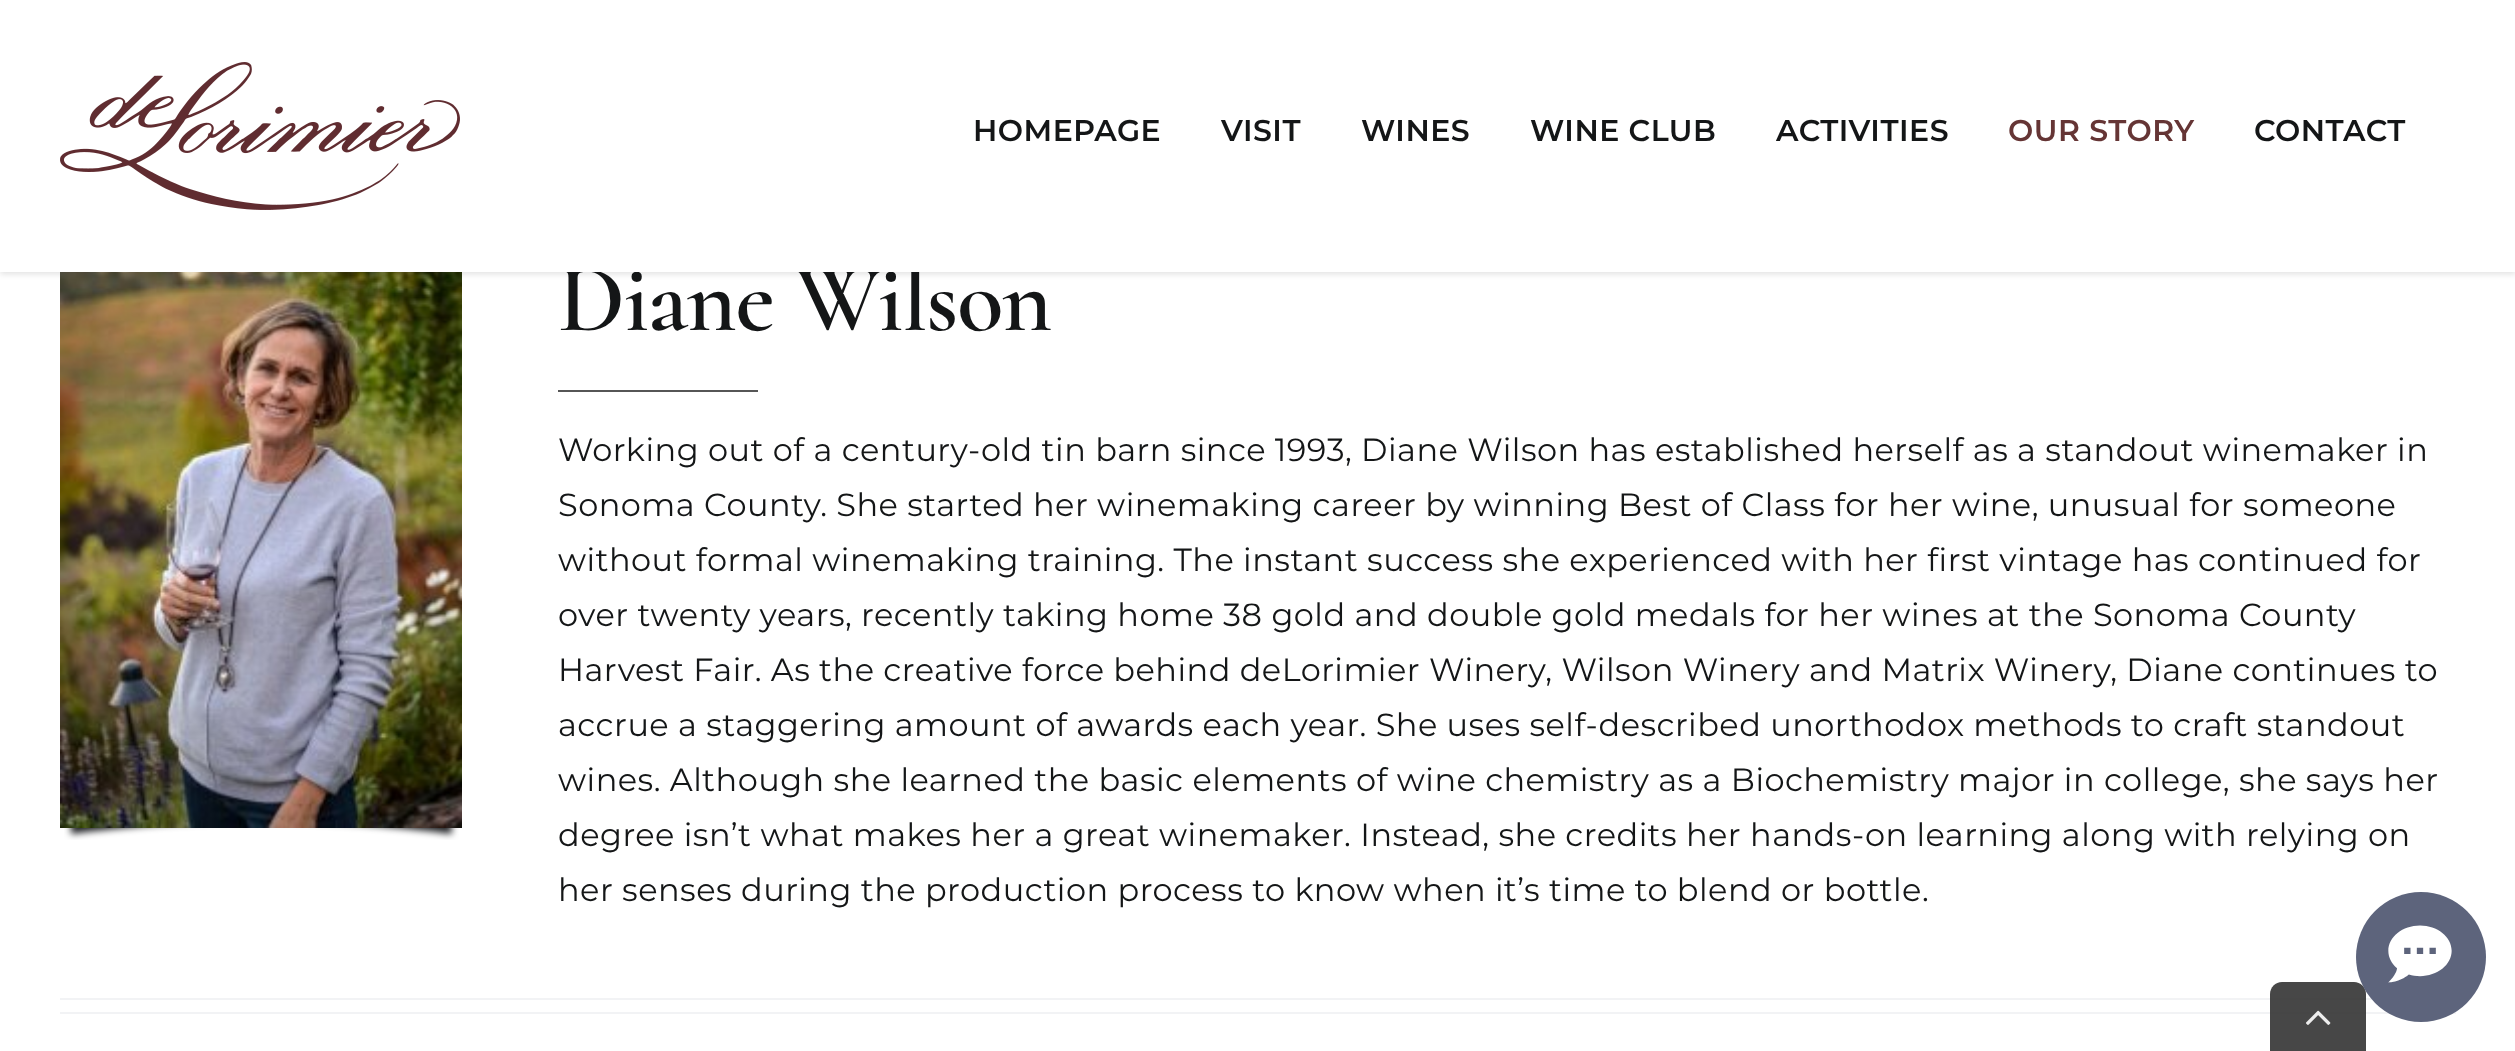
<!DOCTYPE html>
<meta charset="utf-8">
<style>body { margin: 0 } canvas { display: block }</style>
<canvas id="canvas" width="2515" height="1051"></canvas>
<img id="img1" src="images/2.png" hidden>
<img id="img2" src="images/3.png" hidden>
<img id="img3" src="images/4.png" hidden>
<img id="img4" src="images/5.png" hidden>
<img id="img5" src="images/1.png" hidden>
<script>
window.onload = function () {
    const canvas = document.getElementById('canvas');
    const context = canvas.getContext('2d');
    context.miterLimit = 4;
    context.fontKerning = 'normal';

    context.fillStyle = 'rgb(255, 255, 255)';
    context.fillRect(0, 0, 2515, 1051);
    context.drawImage(document.getElementById('img1'), 60, 272, 402, 556);
    context.fillStyle = 'rgba(0, 0, 0, 0.12)';
    context.filter = 'blur(3px)';
    context.beginPath();
    context.rect(0, 2, 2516, 272);
    context.fill();
    context.filter = 'none';
    context.drawImage(document.getElementById('img2'), 64, 828, 395, 12);
    context.fillStyle = 'rgb(86, 86, 86)';
    context.fillRect(558, 390, 200, 2);
    context.fillStyle = 'rgb(242, 243, 245)';
    context.fillRect(60, 998, 2313, 2);
    context.fillRect(60, 1012, 2396, 2);
    context.fillStyle = 'rgba(51, 51, 51, 0.9)';
    context.beginPath();
    context.moveTo(2282, 982);
    context.lineTo(2354, 982);
    context.bezierCurveTo(2360.5, 982, 2366, 987.5, 2366, 994);
    context.lineTo(2366, 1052);
    context.lineTo(2270, 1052);
    context.lineTo(2270, 994);
    context.bezierCurveTo(2270, 987.5, 2275.5, 982, 2282, 982);
    context.closePath();
    context.fill();
    context.drawImage(document.getElementById('img3'), 2306, 1010, 25, 15);
    context.drawImage(document.getElementById('img4'), 2356, 892, 130, 130);
    context.letterSpacing = '-1.5px';
    context.font = '600 96px Cormorant';
    context.fillStyle = 'rgb(20, 22, 23)';
    context.fillText('Diane Wilson', 558, 330);
    context.fillStyle = 'rgb(255, 255, 255)';
    context.fillRect(0, 0, 2515, 272);
    context.letterSpacing = '0.5px';
    context.font = '600 30px Montserrat';
    context.fillStyle = 'rgb(20, 22, 23)';
    context.fillText('CONTACT', 2254, 141);
    context.fillStyle = 'rgb(101, 53, 53)';
    context.fillText('OUR STORY', 2008, 141);
    context.fillStyle = 'rgb(20, 22, 23)';
    context.fillText('ACTIVITIES', 1776, 141);
    context.fillText('WINE CLUB', 1530, 141);
    context.fillText('WINES', 1361, 141);
    context.fillText('VISIT', 1221, 141);
    context.fillText('HOMEPAGE', 973, 141);
    context.drawImage(document.getElementById('img5'), 60, 62, 400, 148);
    context.letterSpacing = '0.48px';
    context.font = '32px Montserrat';
    context.fillText('Working out of a century-old tin barn since 1993, Diane Wilson has established herself as a standout winemaker in', 558, 461);
    context.fillText('Sonoma County. She started her winemaking career by winning Best of Class for her wine, unusual for someone', 558, 516);
    context.fillText('without formal winemaking training. The instant success she experienced with her first vintage has continued for', 558, 571);
    context.fillText('over twenty years, recently taking home 38 gold and double gold medals for her wines at the Sonoma County', 558, 626);
    context.fillText('Harvest Fair. As the creative force behind deLorimier Winery, Wilson Winery and Matrix Winery, Diane continues to', 558, 681);
    context.fillText('accrue a staggering amount of awards each year. She uses self-described unorthodox methods to craft standout', 558, 736);
    context.fillText('wines. Although she learned the basic elements of wine chemistry as a Biochemistry major in college, she says her', 558, 791);
    context.fillText('degree isn’t what makes her a great winemaker. Instead, she credits her hands-on learning along with relying on', 558, 846);
    context.fillText('her senses during the production process to know when it’s time to blend or bottle.', 558, 901);
};
</script>
